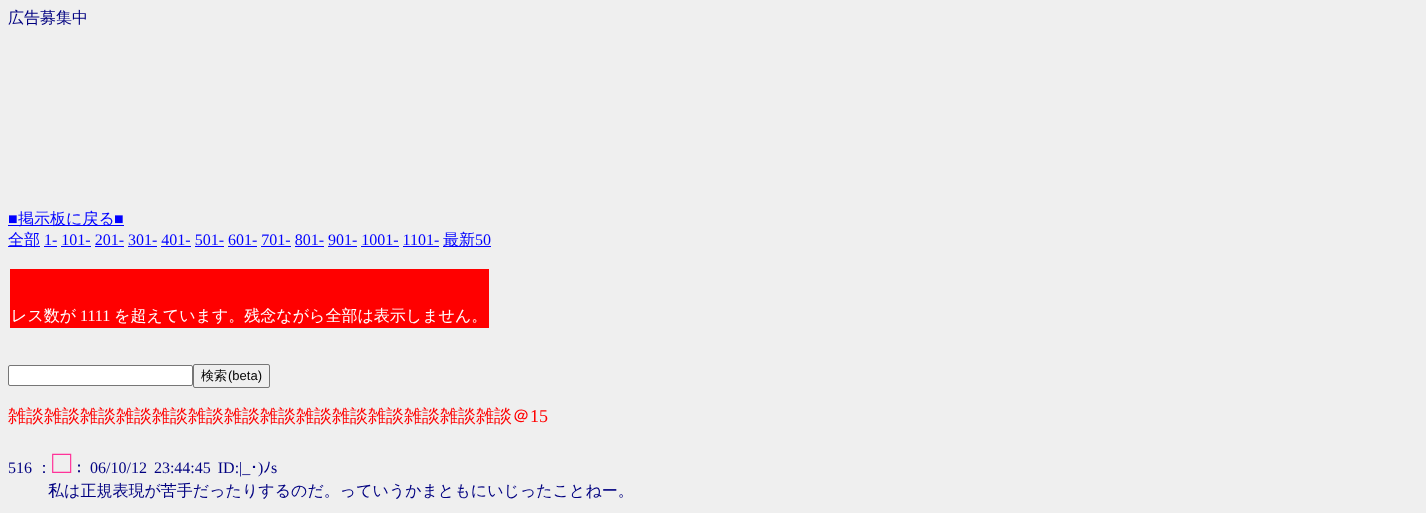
<!DOCTYPE html>
<meta charset="utf-8">
<style>body { margin: 0 } canvas { display: block }</style>
<canvas id="canvas" width="1426" height="513"></canvas>
<script>
window.onload = function () {
    const canvas = document.getElementById('canvas');
    const context = canvas.getContext('2d');
    context.miterLimit = 4;
    context.fontKerning = 'normal';

    context.fillStyle = 'rgb(239, 239, 239)';
    context.fillRect(0, 0, 1426, 513);
    context.fillStyle = 'rgb(0, 0, 255)';
    context.fillRect(8, 225, 116, 1);
    context.fillRect(8, 246, 32, 1);
    context.fillRect(44, 246, 13, 1);
    context.fillRect(443, 246, 48, 1);
    context.fillRect(61, 246, 30, 1);
    context.fillRect(95, 246, 29, 1);
    context.fillRect(128, 246, 29, 1);
    context.fillRect(161, 246, 30, 1);
    context.fillRect(195, 246, 29, 1);
    context.fillRect(228, 246, 29, 1);
    context.fillRect(261, 246, 30, 1);
    context.fillRect(295, 246, 29, 1);
    context.fillRect(328, 246, 29, 1);
    context.fillRect(361, 246, 38, 1);
    context.fillRect(403, 246, 36, 1);
    context.fillStyle = 'rgb(255, 0, 0)';
    context.fillRect(10, 269, 479, 59);
    context.fillStyle = 'rgb(255, 255, 255)';
    context.beginPath();
    context.roundRect(8.5, 365.5, 184, 20, 1.5);
    context.fill();
    context.strokeStyle = 'rgb(118, 118, 118)';
    context.stroke();
    context.beginPath();
    context.roundRect(193.5, 364.5, 76, 23, 1.5);
    context.stroke();
    context.font = '500 16px WenQuanYi Zen Hei';
    context.fillStyle = 'rgb(0, 0, 128)';
    context.fillText('広告募集中', 8, 23);
    context.font = '16px Liberation Serif';
    context.fillStyle = 'rgb(0, 0, 255)';
    context.fillText('■', 8, 224);
    context.font = '500 16px WenQuanYi Zen Hei';
    context.fillText('掲示板に戻る', 18, 224);
    context.font = '16px Liberation Serif';
    context.fillText('■', 114, 224);
    context.font = '500 16px WenQuanYi Zen Hei';
    context.fillText('全部', 8, 245);
    context.font = '16px Liberation Serif';
    context.fillText('1- 101- 201- 301- 401- 501- 601- 701- 801- 901- 1001- 1101-', 44, 245);
    context.font = '500 16px WenQuanYi Zen Hei';
    context.fillText('最新', 443, 245);
    context.font = '16px Liberation Serif';
    context.fillText('50', 475, 245);
    context.font = '500 16px WenQuanYi Zen Hei';
    context.fillStyle = 'rgb(255, 255, 255)';
    context.fillText('レス数が', 11, 321);
    context.font = '16px Liberation Serif';
    context.fillText('1111', 80, 321);
    context.font = '500 16px WenQuanYi Zen Hei';
    context.fillText('を超えています。残念ながら全部は表示しません。', 114, 321);
    context.font = '500 13px WenQuanYi Zen Hei';
    context.fillStyle = 'rgb(0, 0, 0)';
    context.fillText('検索', 201, 380);
    context.font = '13px Liberation Sans';
    context.fillText('(beta)', 228, 380);
    context.font = '500 18px WenQuanYi Zen Hei';
    context.fillStyle = 'rgb(255, 0, 0)';
    context.fillText('雑談雑談雑談雑談雑談雑談雑談雑談雑談雑談雑談雑談雑談雑談＠', 8, 422);
    context.font = '18px Liberation Serif';
    context.fillText('15', 530, 422);
    context.font = '16px Liberation Serif';
    context.fillStyle = 'rgb(0, 0, 128)';
    context.fillText('516', 8, 473);
    context.font = '500 16px WenQuanYi Zen Hei';
    context.fillText('：', 36, 473);
    context.font = 'bold 32px Liberation Serif';
    context.fillStyle = 'rgb(255, 51, 153)';
    context.fillText('□', 52, 473);
    context.font = '16px IPAPGothic';
    context.fillStyle = 'rgb(0, 0, 128)';
    context.fillText('：', 75, 473);
    context.wordSpacing = '3px';
    context.font = '16px Liberation Serif';
    context.fillText('06/10/12 23:44:45 ID:|_', 90, 473);
    context.wordSpacing = '0px';
    context.font = '16px IPAPGothic';
    context.fillText('・', 250, 473);
    context.font = '16px Liberation Serif';
    context.fillText(')', 258, 473);
    context.font = '16px IPAPGothic';
    context.fillText('ﾉ', 263, 473);
    context.font = '16px Liberation Serif';
    context.fillText('s', 271, 473);
    context.font = '500 16px WenQuanYi Zen Hei';
    context.fillText('私は正規表現が苦手だったりするのだ。っていうかまともにいじったことねー。', 48, 496);
};
</script>
